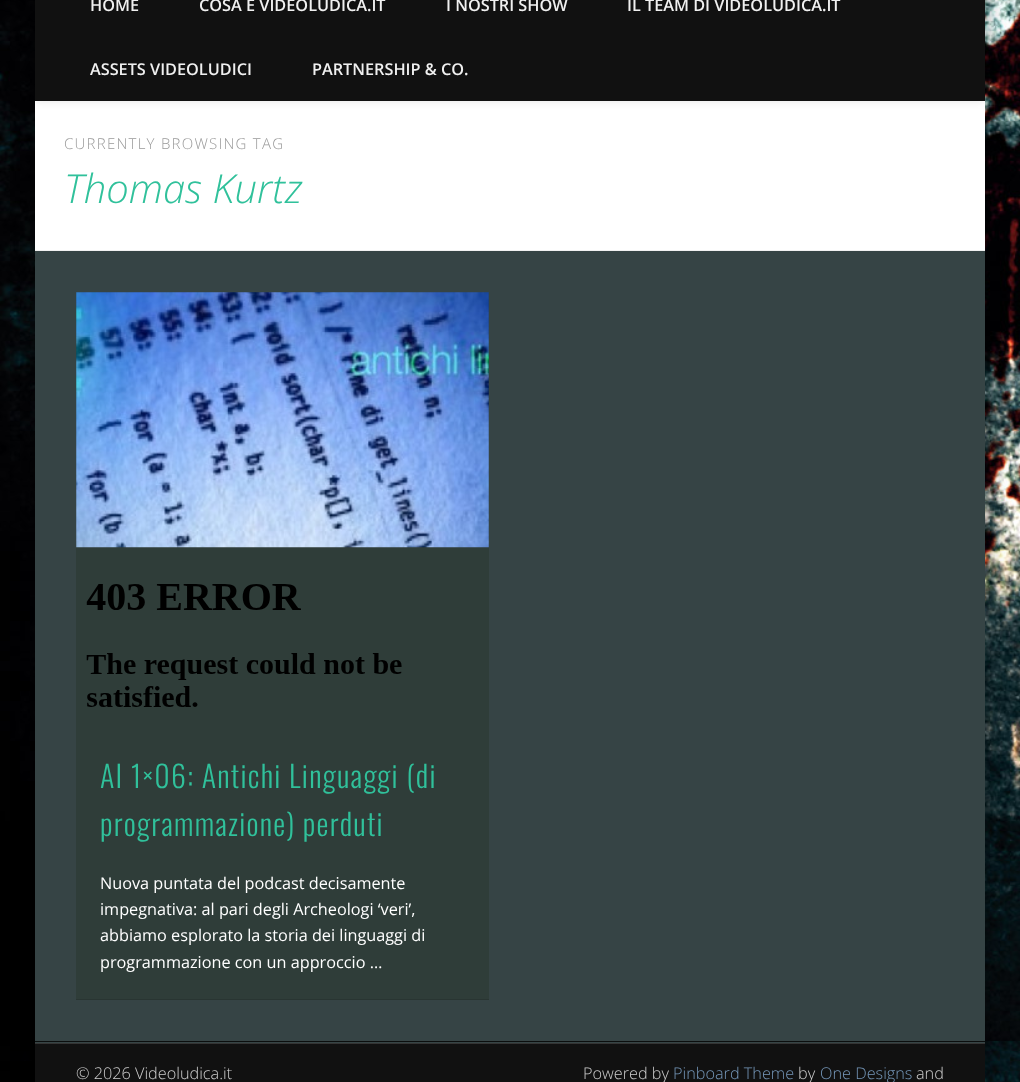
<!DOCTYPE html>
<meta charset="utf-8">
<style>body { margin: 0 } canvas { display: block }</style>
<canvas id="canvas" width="1020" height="1082"></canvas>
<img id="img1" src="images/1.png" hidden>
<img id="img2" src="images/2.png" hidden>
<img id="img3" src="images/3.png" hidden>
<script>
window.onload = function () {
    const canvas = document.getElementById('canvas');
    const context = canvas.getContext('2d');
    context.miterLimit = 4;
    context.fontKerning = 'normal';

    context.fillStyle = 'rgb(255, 255, 255)';
    context.fillRect(0, 0, 1020, 1082);
    context.drawImage(document.getElementById('img1'), 0, 0, 1020, 1082);
    context.fillStyle = 'rgba(0, 0, 0, 0.4)';
    context.filter = 'blur(11px)';
    context.beginPath();
    context.rect(35, -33, 950, 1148);
    context.fill();
    context.filter = 'none';
    context.fillStyle = 'rgb(54, 68, 69)';
    context.fillRect(35, 251, 950, 792);
    context.fillStyle = 'rgb(255, 255, 255)';
    context.fillRect(35, 101, 950, 149);
    context.save();
    context.beginPath();
    context.rect(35, 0, 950, 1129);
    context.clip();
    context.fillStyle = 'rgba(0, 0, 0, 0.1)';
    context.filter = 'blur(4.5px)';
    context.beginPath();
    context.rect(35, -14, 950, 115);
    context.fill();
    context.filter = 'none';
    context.restore();
    context.fillStyle = 'rgb(17, 17, 17)';
    context.fillRect(35, 0, 950, 101);
    context.fillStyle = 'rgb(241, 241, 241)';
    context.fillRect(35, 250, 950, 1);
    context.fillStyle = 'rgb(47, 61, 57)';
    context.fillRect(76, 293, 413, 706);
    context.fillStyle = 'rgb(41, 53, 50)';
    context.fillRect(76, 999, 413, 1);
    context.drawImage(document.getElementById('img2'), 76, 292, 413, 256);
    context.drawImage(document.getElementById('img3'), 86, 584, 316, 123);
    context.fillStyle = 'rgb(11, 14, 14)';
    context.fillRect(35, 1041, 950, 1);
    context.fillStyle = 'rgb(17, 17, 17)';
    context.fillRect(35, 1044, 950, 38);
    context.fillStyle = 'rgb(52, 52, 52)';
    context.fillRect(35, 1043, 950, 1);
    context.font = '600 16.25px Open Sans';
    context.fillStyle = 'rgb(240, 240, 240)';
    context.fillText('HOME', 90, 11);
    context.fillText('COSA È VIDEOLUDICA.IT', 199, 11);
    context.fillText('I NOSTRI SHOW', 446, 11);
    context.fillText('IL TEAM DI VIDEOLUDICA.IT', 627, 11);
    context.fillText('ASSETS VIDEOLUDICI', 90, 75);
    context.fillText('PARTNERSHIP & CO.', 312, 75);
    context.letterSpacing = '1.25px';
    context.font = '300 15px Open Sans';
    context.fillStyle = 'rgb(153, 153, 153)';
    context.fillText('CURRENTLY BROWSING TAG', 64, 149);
    context.letterSpacing = '0px';
    context.font = 'italic 300 40px Open Sans';
    context.fillStyle = 'rgb(48, 193, 155)';
    context.fillText('Thomas Kurtz', 64, 203);
    context.letterSpacing = '1.25px';
    context.font = '300 30px Oswald';
    context.fillText('AI 1×06: Antichi Linguaggi (di', 100, 788);
    context.fillText('programmazione) perduti', 100, 836);
    context.letterSpacing = '0px';
    context.font = '16.25px Open Sans';
    context.fillStyle = 'rgb(255, 255, 255)';
    context.fillText('Nuova puntata del podcast decisamente', 100, 889);
    context.fillText('impegnativa: al pari degli Archeologi ‘veri’,', 100, 915);
    context.fillText('abbiamo esplorato la storia dei linguaggi di', 100, 941);
    context.fillText('programmazione con un approccio …', 100, 968);
    context.font = '300 16.25px Open Sans';
    context.fillStyle = 'rgb(204, 204, 204)';
    context.fillText('© 2026 Videoludica.it', 76, 1079);
    context.fillText('Powered by', 583, 1079);
    context.fillStyle = 'rgb(117, 151, 185)';
    context.fillText('Pinboard Theme', 673, 1079);
    context.fillStyle = 'rgb(204, 204, 204)';
    context.fillText('by', 798, 1079);
    context.fillStyle = 'rgb(117, 151, 185)';
    context.fillText('One Designs', 820, 1079);
    context.fillStyle = 'rgb(204, 204, 204)';
    context.fillText('and', 916, 1079);
};
</script>
